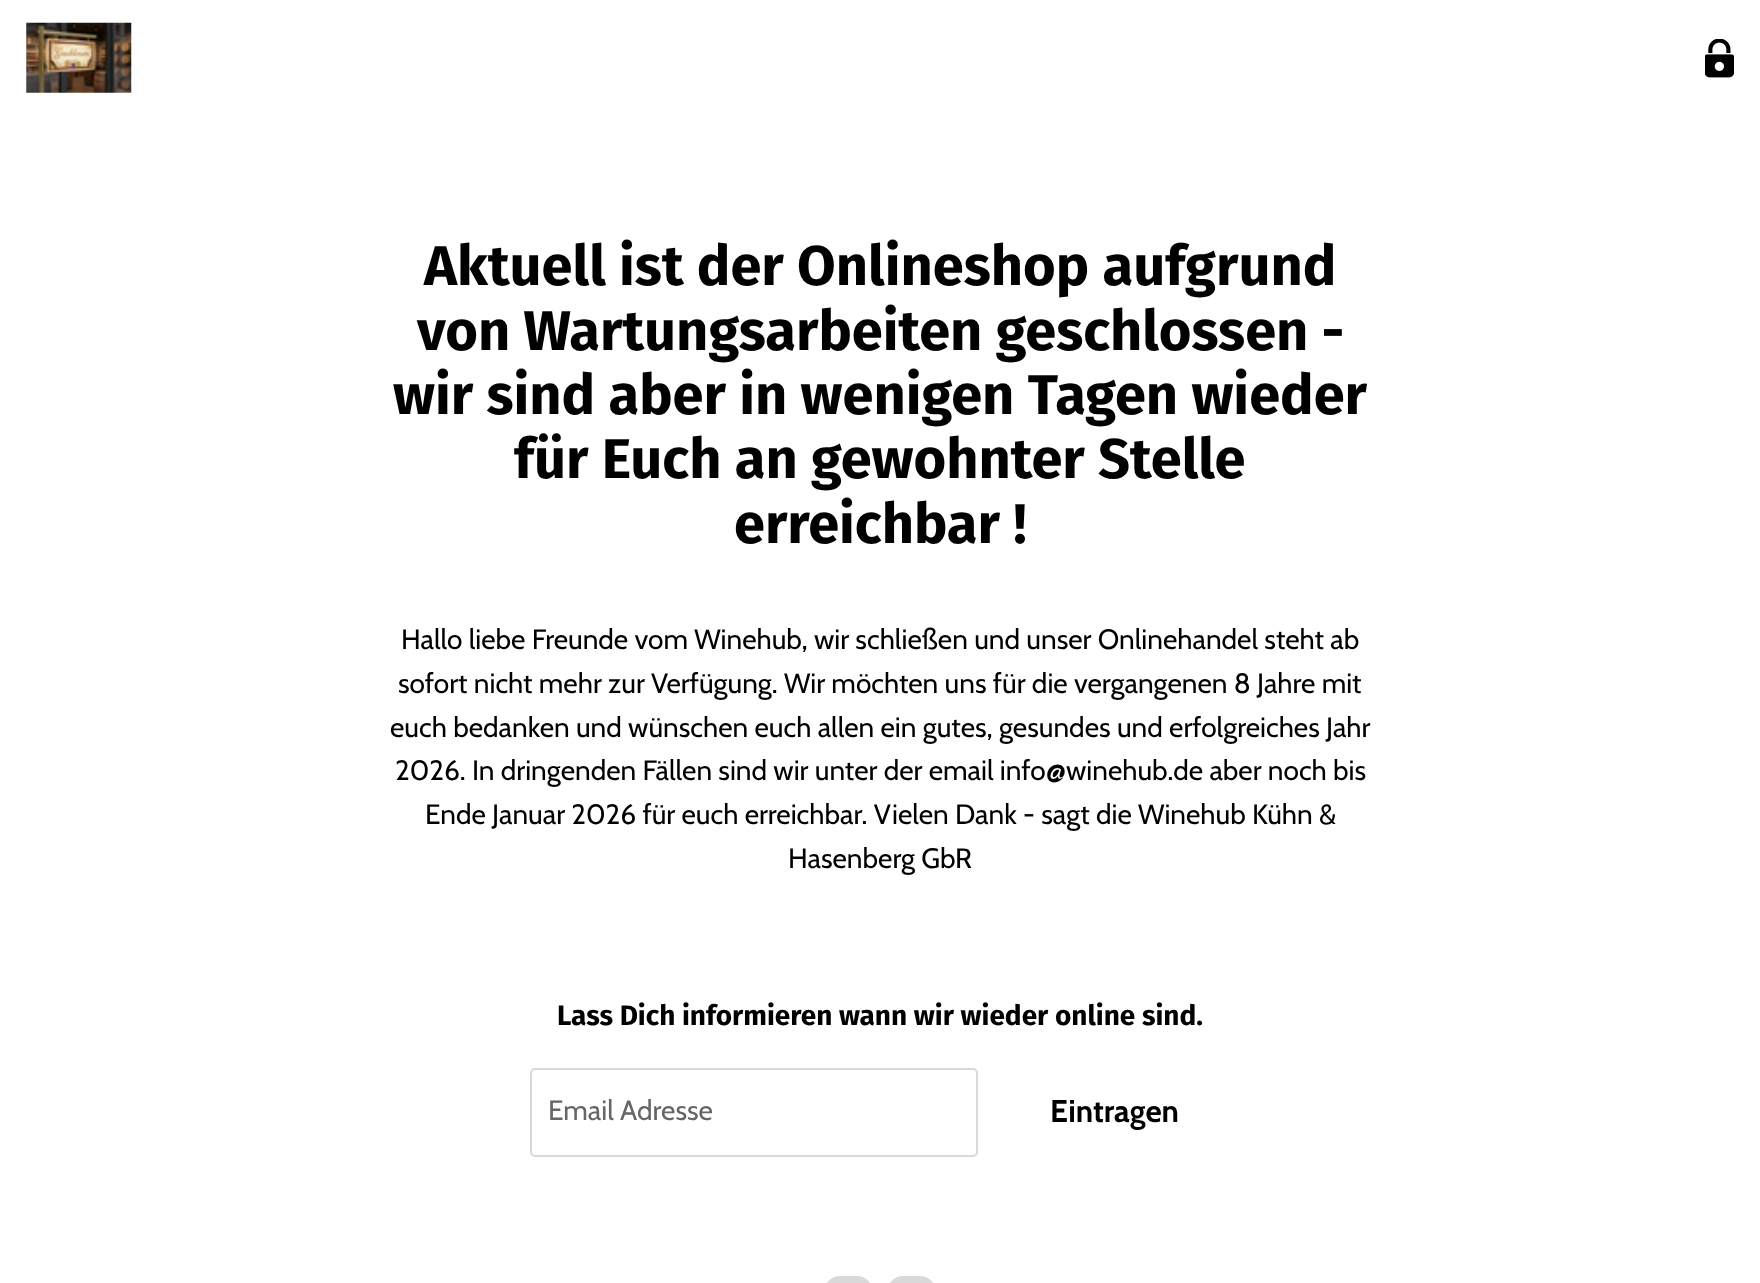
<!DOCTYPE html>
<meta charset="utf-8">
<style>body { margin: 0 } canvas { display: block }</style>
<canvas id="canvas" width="1760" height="1283"></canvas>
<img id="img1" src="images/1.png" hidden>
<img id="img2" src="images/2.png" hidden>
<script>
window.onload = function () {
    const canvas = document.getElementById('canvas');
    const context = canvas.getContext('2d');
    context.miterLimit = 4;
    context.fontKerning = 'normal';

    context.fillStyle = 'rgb(255, 255, 255)';
    context.fillRect(0, 0, 1760, 1283);
    context.drawImage(document.getElementById('img1'), 26, 22, 106, 71);
    context.drawImage(document.getElementById('img2'), 1705, 39, 29, 39);
    context.beginPath();
    context.roundRect(531, 1069, 446, 87, 4);
    context.strokeStyle = 'rgb(217, 217, 217)';
    context.lineWidth = 2;
    context.stroke();
    context.fillStyle = 'rgb(217, 217, 217)';
    context.beginPath();
    context.roundRect(824, 1276, 49, 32, 24.5);
    context.fill();
    context.beginPath();
    context.roundRect(887, 1276, 49, 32, 24.5);
    context.fill();
    context.font = 'bold 56px Fira Sans';
    context.fillStyle = 'rgb(0, 0, 0)';
    context.fillText('Aktuell ist der Onlineshop aufgrund', 424, 285);
    context.fillText('von Wartungsarbeiten geschlossen -', 417, 350);
    context.fillText('wir sind aber in wenigen Tagen wieder', 393, 414);
    context.fillText('für Euch an gewohnter Stelle', 514, 478);
    context.fillText('erreichbar !', 734, 543);
    context.font = '28px Cabin';
    context.fillText('Hallo liebe Freunde vom Winehub, wir schließen und unser Onlinehandel steht ab', 401, 649);
    context.fillText('sofort nicht mehr zur Verfügung. Wir möchten uns für die vergangenen 8 Jahre mit', 398, 693);
    context.fillText('euch bedanken und wünschen euch allen ein gutes, gesundes und erfolgreiches Jahr', 390, 737);
    context.fillText('2026. In dringenden Fällen sind wir unter der email info@winehub.de aber noch bis', 395, 780);
    context.fillText('Ende Januar 2026 für euch erreichbar. Vielen Dank - sagt die Winehub Kühn &', 425, 824);
    context.fillText('Hasenberg GbR', 788, 868);
    context.font = 'bold 28px Fira Sans';
    context.fillText('Lass Dich informieren wann wir wieder online sind.', 557, 1025);
    context.font = '28px Cabin';
    context.fillStyle = 'rgb(102, 102, 102)';
    context.fillText('Email Adresse', 548, 1120);
    context.font = 'bold 31.5px Cabin';
    context.fillStyle = 'rgb(0, 0, 0)';
    context.fillText('Eintragen', 1050, 1122);
};
</script>
